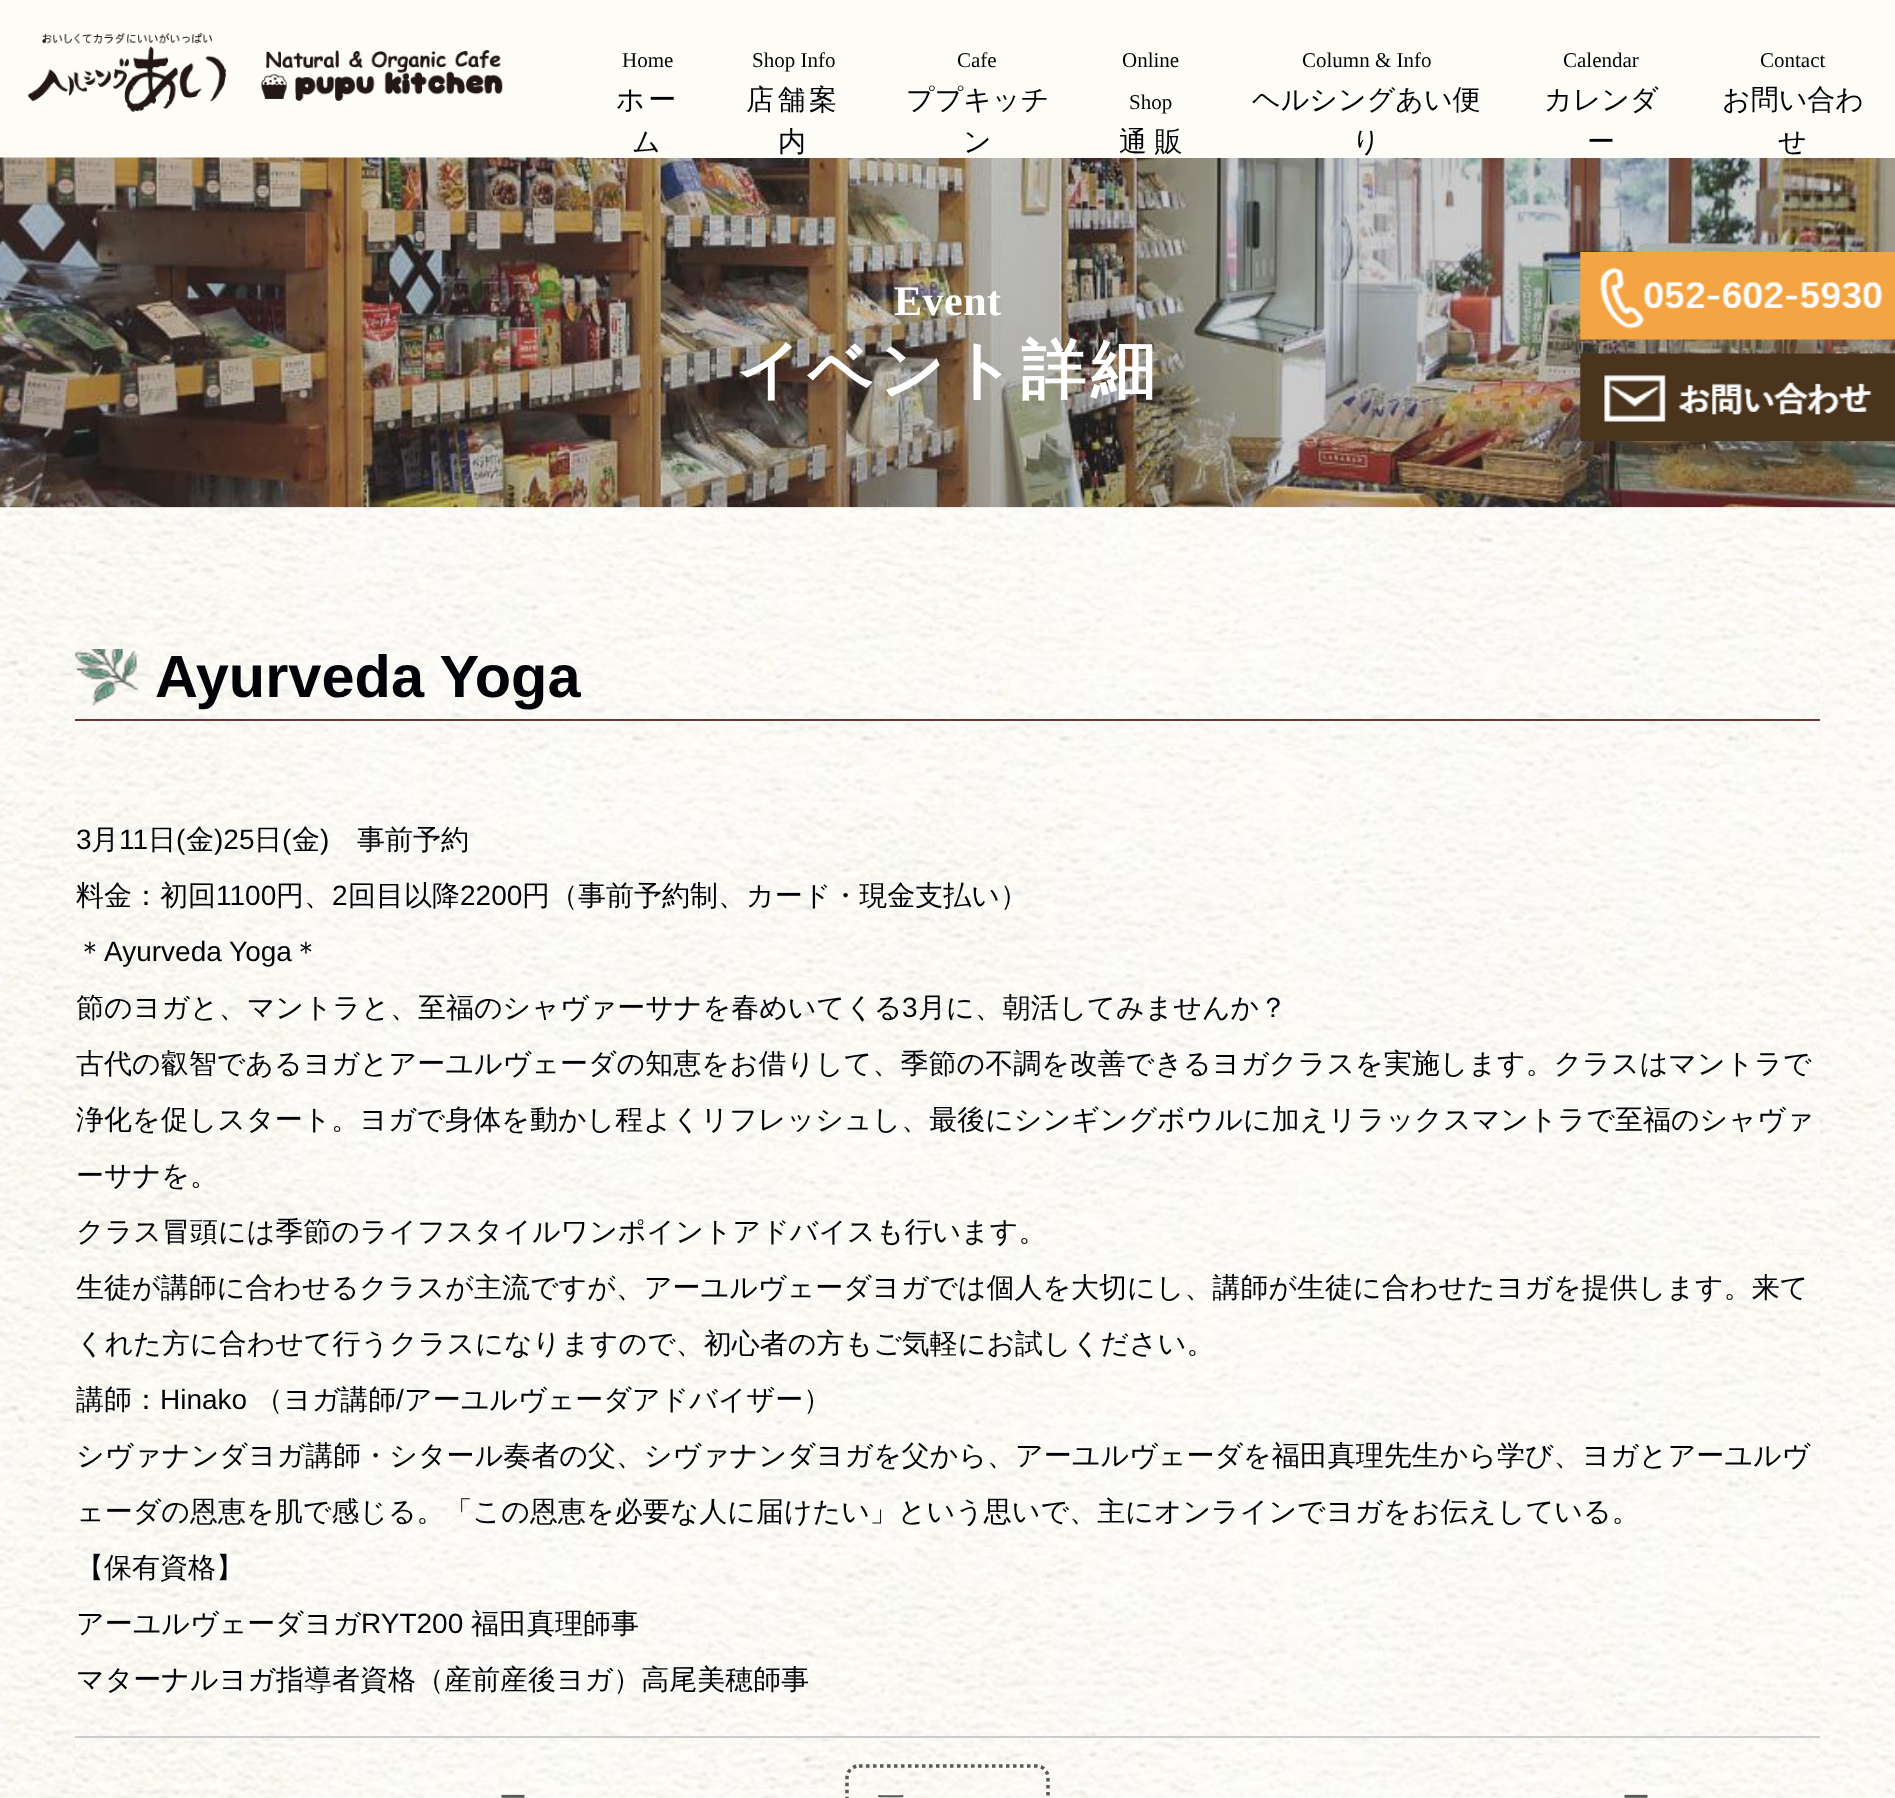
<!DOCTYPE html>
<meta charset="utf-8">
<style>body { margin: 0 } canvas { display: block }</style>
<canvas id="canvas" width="1895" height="1798"></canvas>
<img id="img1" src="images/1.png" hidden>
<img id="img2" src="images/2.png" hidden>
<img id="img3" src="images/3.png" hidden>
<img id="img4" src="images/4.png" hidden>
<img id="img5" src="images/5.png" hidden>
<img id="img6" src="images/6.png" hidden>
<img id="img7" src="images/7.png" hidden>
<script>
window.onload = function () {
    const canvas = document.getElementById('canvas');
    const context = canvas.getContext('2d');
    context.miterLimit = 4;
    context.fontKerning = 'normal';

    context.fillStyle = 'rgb(255, 255, 255)';
    context.fillRect(0, 0, 1895, 1798);
    context.fillStyle = 'rgb(253, 252, 247)';
    context.fillRect(0, 0, 583, 158);
    context.drawImage(document.getElementById('img1'), 28, 33, 475, 79);
    context.drawImage(document.getElementById('img2'), 0, 157, 1895, 351);
    context.fillRect(583, 0, 1312, 158);
    context.drawImage(document.getElementById('img3'), 1580, 252, 315, 88);
    context.drawImage(document.getElementById('img4'), 1580, 353, 315, 88);
    context.drawImage(document.getElementById('img5'), 0, 507, 1895, 1291);
    context.drawImage(document.getElementById('img6'), 75, 507, 1745, 1291);
    context.fillStyle = 'rgb(104, 57, 56)';
    context.fillRect(75, 719, 1745, 2);
    context.drawImage(document.getElementById('img7'), 75, 649, 64, 57);
    context.fillStyle = 'rgb(204, 204, 204)';
    context.fillRect(75, 1736, 1745, 2);
    context.beginPath();
    context.moveTo(859, 1766);
    context.lineTo(1036, 1766);
    context.bezierCurveTo(1043, 1766, 1048, 1771, 1048, 1778);
    context.lineTo(1048, 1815);
    context.bezierCurveTo(1048, 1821.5, 1043, 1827, 1036, 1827);
    context.lineTo(859, 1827);
    context.bezierCurveTo(852.5, 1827, 847, 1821.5, 847, 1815);
    context.lineTo(847, 1778);
    context.bezierCurveTo(847, 1771, 852.5, 1766, 859, 1766);
    context.closePath();
    context.strokeStyle = 'rgb(88, 88, 88)';
    context.lineWidth = 3.5;
    context.setLineDash([3.5, 3.5]);
    context.stroke();
    context.font = '21px Liberation Serif';
    context.fillStyle = 'rgb(2, 3, 8)';
    context.fillText('Home', 622, 67);
    context.letterSpacing = '3.5px';
    context.font = '500 28px WenQuanYi Zen Hei';
    context.fillText('ホー', 616, 109);
    context.fillText('ム', 632, 151);
    context.letterSpacing = '0px';
    context.font = '21px Liberation Serif';
    context.fillText('Shop Info', 752, 67);
    context.letterSpacing = '3.5px';
    context.font = '500 28px WenQuanYi Zen Hei';
    context.fillText('店舗案', 746, 109);
    context.fillText('内', 778, 151);
    context.letterSpacing = '0px';
    context.font = '21px Liberation Serif';
    context.fillText('Cafe', 957, 67);
    context.font = '500 28px WenQuanYi Zen Hei';
    context.fillText('ププキッチ', 906, 109);
    context.fillText('ン', 963, 151);
    context.font = '21px Liberation Serif';
    context.fillText('Online', 1122, 67);
    context.fillText('Shop', 1129, 109);
    context.wordSpacing = '-1px';
    context.font = '500 28px WenQuanYi Zen Hei';
    context.fillText('通 販', 1119, 151);
    context.wordSpacing = '0px';
    context.font = '21px Liberation Serif';
    context.fillText('Column & Info', 1302, 67);
    context.font = '500 28px WenQuanYi Zen Hei';
    context.fillText('ヘルシングあい便', 1252, 109);
    context.fillText('り', 1352, 151);
    context.font = '21px Liberation Serif';
    context.fillText('Calendar', 1563, 67);
    context.font = '500 28px WenQuanYi Zen Hei';
    context.fillText('カレンダ', 1544, 109);
    context.fillText('ー', 1587, 151);
    context.font = '21px Liberation Serif';
    context.fillText('Contact', 1760, 67);
    context.font = '500 28px WenQuanYi Zen Hei';
    context.fillText('お問い合わ', 1722, 109);
    context.fillText('せ', 1778, 151);
    context.letterSpacing = '0.5px';
    context.font = 'bold 42px Liberation Serif';
    context.fillStyle = 'rgb(255, 255, 255)';
    context.fillText('Event', 894, 315);
    context.letterSpacing = '5.25px';
    context.font = 'bold 64.5px WenQuanYi Zen Hei';
    context.fillText('イベント詳細', 736, 392);
    context.letterSpacing = '0px';
    context.font = 'bold 59.5px Liberation Sans';
    context.fillStyle = 'rgb(2, 3, 8)';
    context.fillText('Ayurveda Yoga', 155, 697);
    context.font = '28px Liberation Sans';
    context.fillText('3', 76, 849);
    context.font = '500 28px WenQuanYi Zen Hei';
    context.fillText('月', 91, 849);
    context.font = '28px Liberation Sans';
    context.fillText('11', 119, 849);
    context.font = '500 28px WenQuanYi Zen Hei';
    context.fillText('日', 148, 849);
    context.font = '28px Liberation Sans';
    context.fillText('(', 176, 849);
    context.font = '500 28px WenQuanYi Zen Hei';
    context.fillText('金', 186, 849);
    context.font = '28px Liberation Sans';
    context.fillText(')25', 214, 849);
    context.font = '500 28px WenQuanYi Zen Hei';
    context.fillText('日', 254, 849);
    context.font = '28px Liberation Sans';
    context.fillText('(', 282, 849);
    context.font = '500 28px WenQuanYi Zen Hei';
    context.fillText('金', 292, 849);
    context.font = '28px Liberation Sans';
    context.fillText(')', 320, 849);
    context.font = '500 28px WenQuanYi Zen Hei';
    context.fillText('事前予約', 357, 849);
    context.fillText('料金：初回', 76, 905);
    context.font = '28px Liberation Sans';
    context.fillText('1100', 216, 905);
    context.font = '500 28px WenQuanYi Zen Hei';
    context.fillText('円、', 276, 905);
    context.font = '28px Liberation Sans';
    context.fillText('2', 332, 905);
    context.font = '500 28px WenQuanYi Zen Hei';
    context.fillText('回目以降', 348, 905);
    context.font = '28px Liberation Sans';
    context.fillText('2200', 460, 905);
    context.font = '500 28px WenQuanYi Zen Hei';
    context.fillText('円（事前予約制、カード・現金支払い）', 522, 905);
    context.fillText('＊', 76, 961);
    context.font = '28px Liberation Sans';
    context.fillText('Ayurveda Yoga', 104, 961);
    context.font = '500 28px WenQuanYi Zen Hei';
    context.fillText('＊', 292, 961);
    context.fillText('節のヨガと、マントラと、至福のシャヴァーサナを春めいてくる', 76, 1017);
    context.font = '28px Liberation Sans';
    context.fillText('3', 902, 1017);
    context.font = '500 28px WenQuanYi Zen Hei';
    context.fillText('月に、朝活してみませんか？', 918, 1017);
    context.fillText('古代の叡智であるヨガとアーユルヴェーダの知恵をお借りして、季節の不調を改善できるヨガクラスを実施します。クラスはマントラで', 76, 1073);
    context.fillText('浄化を促しスタート。ヨガで身体を動かし程よくリフレッシュし、最後にシンギングボウルに加えリラックスマントラで至福のシャヴァ', 76, 1129);
    context.fillText('ーサナを。', 76, 1185);
    context.fillText('クラス冒頭には季節のライフスタイルワンポイントアドバイスも行います。', 76, 1241);
    context.fillText('生徒が講師に合わせるクラスが主流ですが、アーユルヴェーダヨガでは個人を大切にし、講師が生徒に合わせたヨガを提供します。来て', 76, 1297);
    context.fillText('くれた方に合わせて行うクラスになりますので、初心者の方もご気軽にお試しください。', 76, 1353);
    context.fillText('講師：', 76, 1409);
    context.font = '28px Liberation Sans';
    context.fillText('Hinako', 160, 1409);
    context.font = '500 28px WenQuanYi Zen Hei';
    context.fillText('（ヨガ講師', 255, 1409);
    context.font = '28px Liberation Sans';
    context.fillText('/', 396, 1409);
    context.font = '500 28px WenQuanYi Zen Hei';
    context.fillText('アーユルヴェーダアドバイザー）', 404, 1409);
    context.fillText('シヴァナンダヨガ講師・シタール奏者の父、シヴァナンダヨガを父から、アーユルヴェーダを福田真理先生から学び、ヨガとアーユルヴ', 76, 1465);
    context.fillText('ェーダの恩恵を肌で感じる。「この恩恵を必要な人に届けたい」という思いで、主にオンラインでヨガをお伝えしている。', 76, 1521);
    context.fillText('【保有資格】', 76, 1577);
    context.fillText('アーユルヴェーダヨガ', 76, 1633);
    context.font = '28px Liberation Sans';
    context.fillText('RYT200', 361, 1633);
    context.font = '500 28px WenQuanYi Zen Hei';
    context.fillText('福田真理師事', 471, 1633);
    context.fillText('マターナルヨガ指導者資格（産前産後ヨガ）高尾美穂師事', 76, 1689);
    context.fillStyle = 'rgb(88, 88, 88)';
    context.fillText('ー', 499, 1807);
    context.fillText('一', 877, 1807);
    context.fillText('ー', 1622, 1807);
};
</script>
